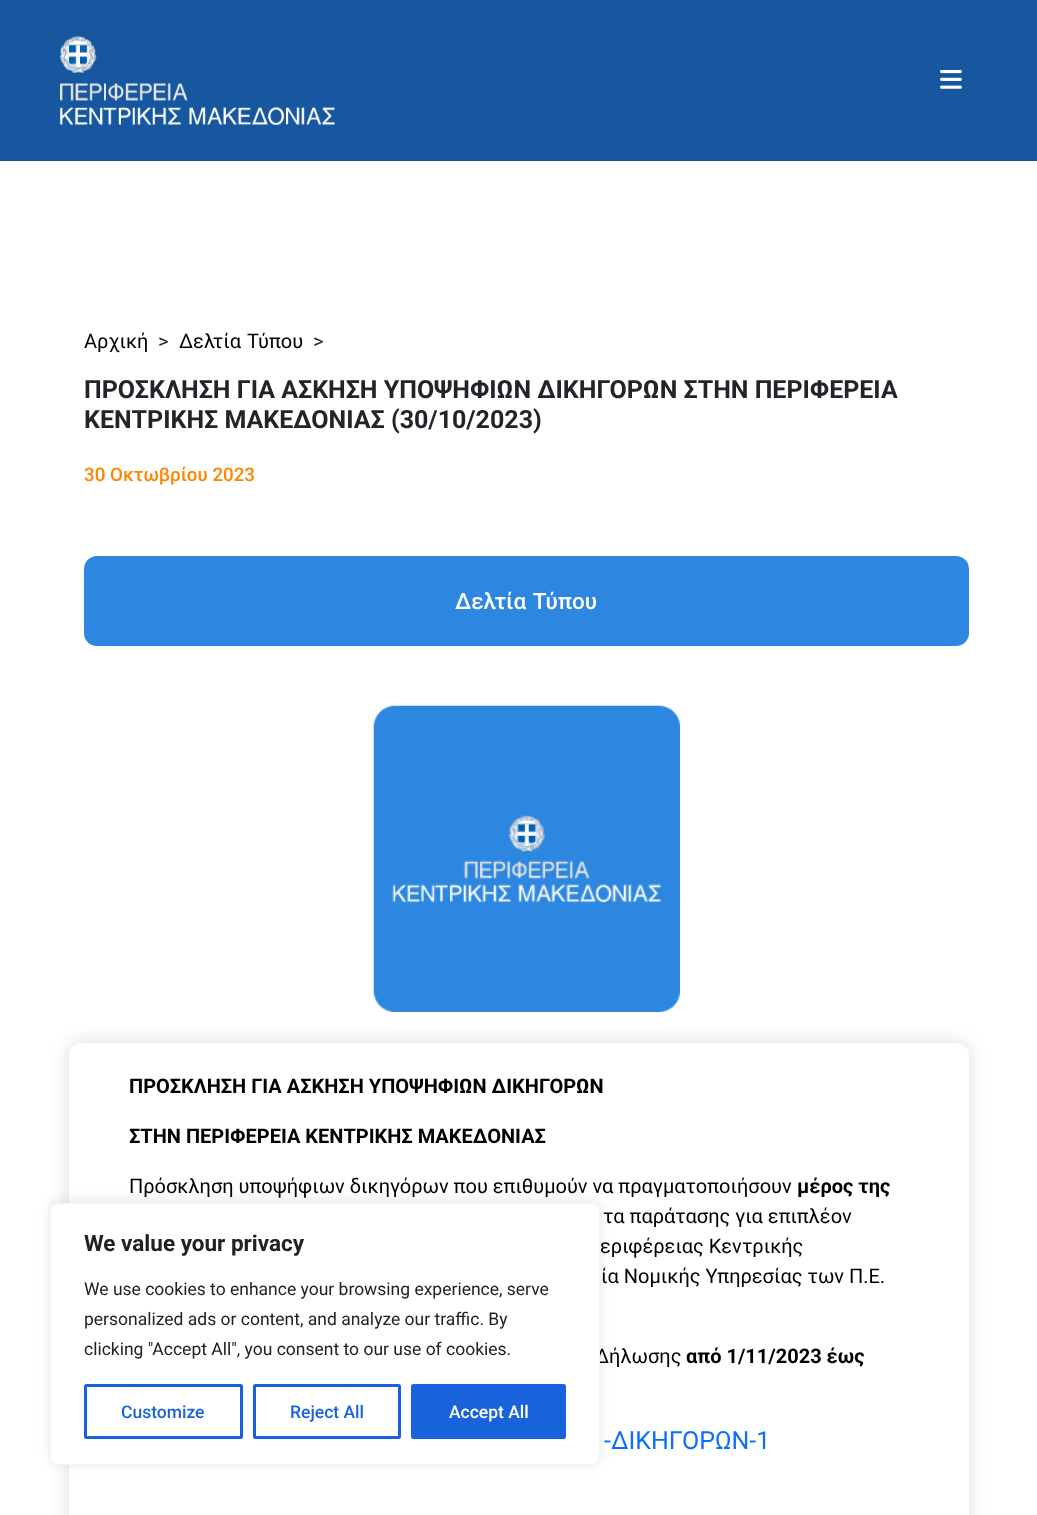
<!DOCTYPE html>
<meta charset="utf-8">
<style>body { margin: 0 } canvas { display: block }</style>
<canvas id="canvas" width="1037" height="1515"></canvas>
<img id="img1" src="images/1.png" hidden>
<img id="img2" src="images/2.png" hidden>
<img id="img3" src="images/3.png" hidden>
<script>
window.onload = function () {
    const canvas = document.getElementById('canvas');
    const context = canvas.getContext('2d');
    context.miterLimit = 4;
    context.fontKerning = 'normal';

    context.fillStyle = 'rgb(255, 255, 255)';
    context.fillRect(0, 0, 1037, 1515);
    context.fillStyle = 'rgb(22, 87, 159)';
    context.fillRect(0, 0, 1037, 161);
    context.drawImage(document.getElementById('img1'), 60, 36, 275, 90);
    context.drawImage(document.getElementById('img2'), 940, 70, 22, 19);
    context.fillStyle = 'rgb(45, 135, 225)';
    context.beginPath();
    context.roundRect(84, 556, 885, 90, 13);
    context.fill();
    context.drawImage(document.getElementById('img3'), 373, 705, 307, 307);
    context.fillStyle = 'rgba(0, 0, 0, 0.14)';
    context.filter = 'blur(9.5px)';
    context.beginPath();
    context.roundRect(69, 1043, 900, 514, 13);
    context.fill();
    context.filter = 'none';
    context.fillStyle = 'rgb(255, 255, 255)';
    context.beginPath();
    context.roundRect(69, 1043, 900, 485, 13);
    context.fill();
    context.fillStyle = 'rgba(172, 171, 171, 0.3)';
    context.filter = 'blur(6px)';
    context.beginPath();
    context.roundRect(50, 1201, 550, 263, 8);
    context.fill();
    context.filter = 'none';
    context.font = '20px Roboto';
    context.fillStyle = 'rgb(0, 0, 0)';
    context.fillText('Αρχική', 84, 348);
    context.fillStyle = 'rgb(33, 37, 41)';
    context.fillText('>', 158, 348);
    context.wordSpacing = '1px';
    context.fillStyle = 'rgb(0, 0, 0)';
    context.fillText('Δελτία Τύπου', 179, 348);
    context.wordSpacing = '0px';
    context.fillStyle = 'rgb(33, 37, 41)';
    context.fillText('>', 313, 348);
    context.font = 'bold 25px Roboto';
    context.fillText('ΠΡΟΣΚΛΗΣΗ ΓΙΑ ΑΣΚΗΣΗ ΥΠΟΨΗΦΙΩΝ ΔΙΚΗΓΟΡΩΝ ΣΤΗΝ ΠΕΡΙΦΕΡΕΙΑ', 84, 398);
    context.fillText('ΚΕΝΤΡΙΚΗΣ ΜΑΚΕΔΟΝΙΑΣ (30/10/2023)', 84, 428);
    context.font = '500 18.75px Roboto';
    context.fillStyle = 'rgb(255, 132, 0)';
    context.fillText('30 Οκτωβρίου 2023', 84, 481);
    context.wordSpacing = '1px';
    context.font = '500 22.5px Roboto';
    context.fillStyle = 'rgb(255, 255, 255)';
    context.fillText('Δελτία Τύπου', 455, 609);
    context.wordSpacing = '0px';
    context.font = 'bold 20px Roboto';
    context.fillStyle = 'rgb(0, 0, 0)';
    context.fillText('ΠΡΟΣΚΛΗΣΗ ΓΙΑ ΑΣΚΗΣΗ ΥΠΟΨΗΦΙΩΝ ΔΙΚΗΓΟΡΩΝ', 129, 1093);
    context.fillText('ΣΤΗΝ ΠΕΡΙΦΕΡΕΙΑ ΚΕΝΤΡΙΚΗΣ ΜΑΚΕΔΟΝΙΑΣ', 129, 1143);
    context.font = '20px Roboto';
    context.fillText('Πρόσκληση υποψήφιων δικηγόρων που επιθυμούν να πραγματοποιήσουν', 129, 1193);
    context.font = 'bold 20px Roboto';
    context.fillText('μέρος της', 797, 1193);
    context.font = '20px Roboto';
    context.fillText('τα παράτασης για επιπλέον', 603, 1223);
    context.fillText('εριφέρειας Κεντρικής', 600, 1253);
    context.fillText('ία Νομικής Υπηρεσίας των Π.Ε.', 601, 1283);
    context.fillText('Δήλωσης', 595, 1363);
    context.font = 'bold 20px Roboto';
    context.fillText('από 1/11/2023 έως', 686, 1363);
    context.font = '25px Roboto';
    context.fillStyle = 'rgb(13, 110, 253)';
    context.fillText('-ΔΙΚΗΓΟΡΩΝ-1', 604, 1449);
    context.fillStyle = 'rgb(255, 255, 255)';
    context.beginPath();
    context.roundRect(50.5, 1203.5, 549, 261, 7.5);
    context.fill();
    context.strokeStyle = 'rgb(244, 244, 244)';
    context.stroke();
    context.font = 'bold 22.5px Roboto';
    context.fillStyle = 'rgb(33, 33, 33)';
    context.fillText('We value your privacy', 84, 1251);
    context.font = '17.5px Roboto';
    context.fillText('We use cookies to enhance your browsing experience, serve', 84, 1295);
    context.fillText('personalized ads or content, and analyze our traffic. By', 84, 1325);
    context.fillText('clicking "Accept All", you consent to our use of cookies.', 84, 1355);
    context.beginPath();
    context.roundRect(85.5, 1385.5, 156, 52, 1);
    context.strokeStyle = 'rgb(24, 99, 220)';
    context.lineWidth = 3;
    context.stroke();
    context.font = '500 17.5px Roboto';
    context.fillStyle = 'rgb(24, 99, 220)';
    context.fillText('Customize', 121, 1418);
    context.beginPath();
    context.roundRect(254.5, 1385.5, 145, 52, 1);
    context.stroke();
    context.fillText('Reject All', 290, 1418);
    context.beginPath();
    context.roundRect(412.5, 1385.5, 152, 52, 1);
    context.fill();
    context.stroke();
    context.fillStyle = 'rgb(255, 255, 255)';
    context.fillText('Accept All', 449, 1418);
};
</script>
